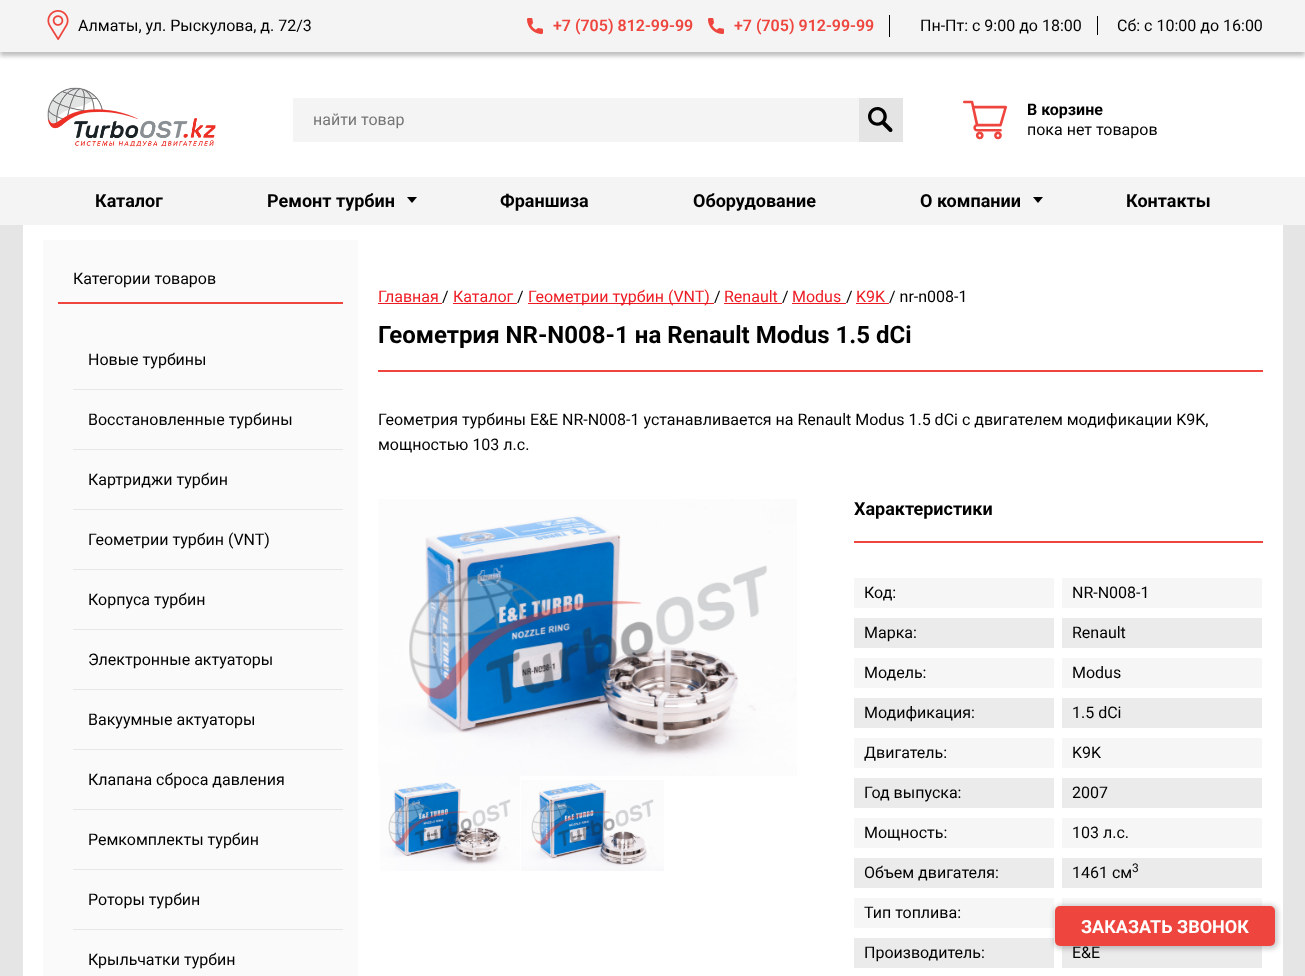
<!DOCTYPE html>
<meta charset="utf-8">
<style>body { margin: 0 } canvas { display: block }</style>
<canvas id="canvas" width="1305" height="976"></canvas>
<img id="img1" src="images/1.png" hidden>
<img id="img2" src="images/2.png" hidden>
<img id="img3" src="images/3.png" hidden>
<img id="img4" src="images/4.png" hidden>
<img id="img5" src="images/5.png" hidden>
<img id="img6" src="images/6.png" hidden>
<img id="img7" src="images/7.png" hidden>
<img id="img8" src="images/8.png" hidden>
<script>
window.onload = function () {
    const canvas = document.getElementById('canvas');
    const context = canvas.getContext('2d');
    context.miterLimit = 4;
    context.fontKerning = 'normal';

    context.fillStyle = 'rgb(229, 229, 229)';
    context.fillRect(0, 0, 1305, 976);
    context.fillStyle = 'rgb(255, 255, 255)';
    context.fillRect(0, 52, 1305, 125);
    context.fillStyle = 'rgba(0, 0, 0, 0.25)';
    context.filter = 'blur(2px)';
    context.beginPath();
    context.rect(0, 4, 1305, 52);
    context.fill();
    context.filter = 'none';
    context.fillStyle = 'rgb(244, 244, 244)';
    context.fillRect(0, 0, 1305, 52);
    context.drawImage(document.getElementById('img1'), 47, 10, 22, 30);
    context.drawImage(document.getElementById('img2'), 527, 18, 16, 16);
    context.fillStyle = 'rgb(0, 0, 0)';
    context.fillRect(889, 15, 1, 22);
    context.drawImage(document.getElementById('img2'), 708, 18, 16, 16);
    context.fillRect(1097, 16, 1, 19);
    context.drawImage(document.getElementById('img3'), 47, 87, 169, 60);
    context.fillStyle = 'rgb(244, 244, 244)';
    context.fillRect(293, 98, 566, 44);
    context.fillStyle = 'rgb(228, 228, 228)';
    context.fillRect(859, 98, 44, 44);
    context.drawImage(document.getElementById('img4'), 868, 107, 25, 25);
    context.drawImage(document.getElementById('img5'), 963, 100, 44, 40);
    context.fillStyle = 'rgb(244, 244, 244)';
    context.fillRect(0, 177, 1305, 48);
    context.fillStyle = 'rgb(0, 0, 0)';
    context.beginPath();
    context.moveTo(407, 197);
    context.lineTo(417, 197);
    context.lineTo(412, 203);
    context.closePath();
    context.fill();
    context.beginPath();
    context.moveTo(1033, 197);
    context.lineTo(1043, 197);
    context.lineTo(1038, 203);
    context.closePath();
    context.fill();
    context.fillStyle = 'rgb(255, 255, 255)';
    context.fillRect(23, 225, 1260, 751);
    context.fillStyle = 'rgb(250, 250, 250)';
    context.fillRect(43, 240, 315, 736);
    context.fillStyle = 'rgb(238, 70, 62)';
    context.fillRect(58, 302, 285, 2);
    context.fillStyle = 'rgb(231, 231, 231)';
    context.fillRect(73, 389, 270, 1);
    context.fillRect(73, 449, 270, 1);
    context.fillRect(73, 509, 270, 1);
    context.fillRect(73, 569, 270, 1);
    context.fillRect(73, 629, 270, 1);
    context.fillRect(73, 689, 270, 1);
    context.fillRect(73, 749, 270, 1);
    context.fillRect(73, 809, 270, 1);
    context.fillRect(73, 869, 270, 1);
    context.fillRect(73, 929, 270, 1);
    context.fillStyle = 'rgb(237, 28, 36)';
    context.fillRect(378, 303, 64, 1);
    context.fillRect(453, 303, 64, 1);
    context.fillRect(528, 303, 186, 1);
    context.fillRect(724, 303, 58, 1);
    context.fillRect(792, 303, 54, 1);
    context.fillRect(856, 303, 33, 1);
    context.fillStyle = 'rgb(238, 70, 62)';
    context.fillRect(378, 370, 885, 2);
    context.drawImage(document.getElementById('img6'), 378, 499, 419, 277);
    context.drawImage(document.getElementById('img7'), 380, 776, 140, 95);
    context.drawImage(document.getElementById('img8'), 521, 780, 143, 91);
    context.fillRect(854, 541, 409, 2);
    context.fillStyle = 'rgb(246, 246, 246)';
    context.fillRect(854, 578, 200, 30);
    context.fillRect(1062, 578, 200, 30);
    context.fillStyle = 'rgb(235, 235, 235)';
    context.fillRect(854, 618, 200, 30);
    context.fillRect(1062, 618, 200, 30);
    context.fillStyle = 'rgb(246, 246, 246)';
    context.fillRect(854, 658, 200, 30);
    context.fillRect(1062, 658, 200, 30);
    context.fillStyle = 'rgb(235, 235, 235)';
    context.fillRect(854, 698, 200, 30);
    context.fillRect(1062, 698, 200, 30);
    context.fillStyle = 'rgb(246, 246, 246)';
    context.fillRect(854, 738, 200, 30);
    context.fillRect(1062, 738, 200, 30);
    context.fillStyle = 'rgb(235, 235, 235)';
    context.fillRect(854, 778, 200, 30);
    context.fillRect(1062, 778, 200, 30);
    context.fillStyle = 'rgb(246, 246, 246)';
    context.fillRect(854, 818, 200, 30);
    context.fillRect(1062, 818, 200, 30);
    context.fillStyle = 'rgb(235, 235, 235)';
    context.fillRect(854, 858, 200, 30);
    context.fillRect(1062, 858, 200, 30);
    context.fillStyle = 'rgb(246, 246, 246)';
    context.fillRect(1062, 898, 200, 8);
    context.fillRect(854, 898, 200, 30);
    context.fillStyle = 'rgb(235, 235, 235)';
    context.fillRect(854, 938, 200, 30);
    context.fillRect(1062, 946, 200, 22);
    context.fillStyle = 'rgba(0, 0, 0, 0.2)';
    context.filter = 'blur(2.5px)';
    context.beginPath();
    context.roundRect(1054, 905, 224, 44, 7);
    context.fill();
    context.filter = 'none';
    context.fillStyle = 'rgb(238, 70, 62)';
    context.beginPath();
    context.roundRect(1055, 906, 220, 40, 5);
    context.fill();
    context.font = '16px Roboto';
    context.fillStyle = 'rgb(0, 0, 0)';
    context.fillText('Алматы, ул. Рыскулова, д. 72/3', 78, 31);
    context.font = '600 16px Roboto';
    context.fillStyle = 'rgb(238, 70, 62)';
    context.fillText('+7 (705) 812-99-99', 553, 31);
    context.fillText('+7 (705) 912-99-99', 734, 31);
    context.font = '16px Roboto';
    context.fillStyle = 'rgb(0, 0, 0)';
    context.fillText('Пн-Пт: с 9:00 до 18:00', 920, 31);
    context.fillText('Сб: с 10:00 до 16:00', 1117, 31);
    context.fillStyle = 'rgb(117, 117, 117)';
    context.fillText('найти товар', 313, 125);
    context.font = 'bold 16px Roboto';
    context.fillStyle = 'rgb(0, 0, 0)';
    context.fillText('В корзине', 1027, 115);
    context.font = '16px Roboto';
    context.fillText('пока нет товаров', 1027, 135);
    context.font = 'bold 18px Roboto';
    context.fillText('Каталог', 95, 207);
    context.fillText('Ремонт турбин', 267, 207);
    context.fillText('Франшиза', 500, 207);
    context.fillText('Оборудование', 693, 207);
    context.fillText('О компании', 920, 207);
    context.fillText('Контакты', 1126, 207);
    context.font = '16px Roboto';
    context.fillText('Категории товаров', 73, 284);
    context.fillText('Новые турбины', 88, 365);
    context.fillText('Восстановленные турбины', 88, 425);
    context.fillText('Картриджи турбин', 88, 485);
    context.fillText('Геометрии турбин (VNT)', 88, 545);
    context.fillText('Корпуса турбин', 88, 605);
    context.fillText('Электронные актуаторы', 88, 665);
    context.fillText('Вакуумные актуаторы', 88, 725);
    context.fillText('Клапана сброса давления', 88, 785);
    context.fillText('Ремкомплекты турбин', 88, 845);
    context.fillText('Роторы турбин', 88, 905);
    context.fillText('Крыльчатки турбин', 88, 965);
    context.fillStyle = 'rgb(237, 28, 36)';
    context.fillText('Главная', 378, 302);
    context.fillStyle = 'rgb(0, 0, 0)';
    context.fillText('/', 442, 302);
    context.fillStyle = 'rgb(237, 28, 36)';
    context.fillText('Каталог', 453, 302);
    context.fillStyle = 'rgb(0, 0, 0)';
    context.fillText('/', 517, 302);
    context.fillStyle = 'rgb(237, 28, 36)';
    context.fillText('Геометрии турбин (VNT)', 528, 302);
    context.fillStyle = 'rgb(0, 0, 0)';
    context.fillText('/', 714, 302);
    context.fillStyle = 'rgb(237, 28, 36)';
    context.fillText('Renault', 724, 302);
    context.fillStyle = 'rgb(0, 0, 0)';
    context.fillText('/', 782, 302);
    context.fillStyle = 'rgb(237, 28, 36)';
    context.fillText('Modus', 792, 302);
    context.fillStyle = 'rgb(0, 0, 0)';
    context.fillText('/', 846, 302);
    context.fillStyle = 'rgb(237, 28, 36)';
    context.fillText('K9K', 856, 302);
    context.fillStyle = 'rgb(0, 0, 0)';
    context.fillText('/ nr-n008-1', 889, 302);
    context.font = 'bold 24px Roboto';
    context.fillText('Геометрия NR-N008-1 на Renault Modus 1.5 dCi', 378, 343);
    context.font = '16px Roboto';
    context.fillText('Геометрия турбины E&E NR-N008-1 устанавливается на Renault Modus 1.5 dCi с двигателем модификации K9K,', 378, 425);
    context.fillText('мощностью 103 л.с.', 378, 450);
    context.font = 'bold 18px Roboto';
    context.fillText('Характеристики', 854, 515);
    context.font = '16px Roboto';
    context.fillText('Код:', 864, 598);
    context.fillText('NR-N008-1', 1072, 598);
    context.fillText('Марка:', 864, 638);
    context.fillText('Renault', 1072, 638);
    context.fillText('Модель:', 864, 678);
    context.fillText('Modus', 1072, 678);
    context.fillText('Модификация:', 864, 718);
    context.fillText('1.5 dCi', 1072, 718);
    context.fillText('Двигатель:', 864, 758);
    context.fillText('K9K', 1072, 758);
    context.fillText('Год выпуска:', 864, 798);
    context.fillText('2007', 1072, 798);
    context.fillText('Мощность:', 864, 838);
    context.fillText('103 л.с.', 1072, 838);
    context.fillText('Объем двигателя:', 864, 878);
    context.fillText('1461 см', 1072, 878);
    context.font = '12px Roboto';
    context.fillText('3', 1132, 872);
    context.font = '16px Roboto';
    context.fillText('Тип топлива:', 864, 918);
    context.fillText('Производитель:', 864, 958);
    context.fillText('E&E', 1072, 958);
    context.font = 'bold 18px Roboto';
    context.fillStyle = 'rgb(255, 255, 255)';
    context.fillText('ЗАКАЗАТЬ ЗВОНОК', 1081, 933);
};
</script>
